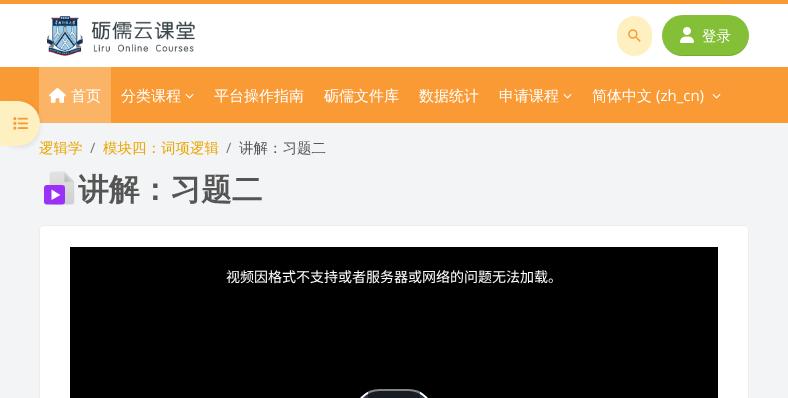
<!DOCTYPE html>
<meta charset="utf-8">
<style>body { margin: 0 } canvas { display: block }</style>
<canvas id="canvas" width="788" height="398"></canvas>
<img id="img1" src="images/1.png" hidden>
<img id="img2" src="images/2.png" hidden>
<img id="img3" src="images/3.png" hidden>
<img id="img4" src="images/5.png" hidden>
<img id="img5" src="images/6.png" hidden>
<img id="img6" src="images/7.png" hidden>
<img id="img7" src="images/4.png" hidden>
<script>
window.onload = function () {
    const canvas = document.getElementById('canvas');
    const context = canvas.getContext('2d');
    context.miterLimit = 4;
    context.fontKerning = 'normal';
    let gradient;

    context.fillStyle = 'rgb(242, 244, 246)';
    context.fillRect(0, 0, 788, 398);
    context.fillStyle = 'rgb(250, 154, 52)';
    context.fillRect(0, 0, 788, 4);
    context.fillStyle = 'rgb(255, 255, 255)';
    context.fillRect(0, 4, 788, 63);
    context.drawImage(document.getElementById('img1'), 47, 16, 148, 40);
    context.fillStyle = 'rgb(254, 240, 193)';
    context.beginPath();
    context.roundRect(617, 16, 35, 40, 17.5);
    context.fill();
    context.drawImage(document.getElementById('img2'), 628, 29, 13, 13);
    context.fillStyle = 'rgb(131, 191, 55)';
    context.beginPath();
    context.roundRect(662, 15, 87, 41, 20.5);
    context.fill();
    context.fillStyle = 'rgba(0, 0, 0, 0.1)';
    context.beginPath();
    context.moveTo(662, 35);
    context.lineTo(662, 36);
    context.bezierCurveTo(662, 47, 671, 56, 682, 56);
    context.lineTo(728, 56);
    context.bezierCurveTo(740, 56, 749, 47, 749, 36);
    context.lineTo(749, 35);
    context.bezierCurveTo(749, 46, 740, 55, 728, 55);
    context.lineTo(682, 55);
    context.bezierCurveTo(671, 55, 662, 46, 662, 35);
    context.closePath();
    context.fill();
    context.drawImage(document.getElementById('img3'), 680, 27, 14, 16);
    context.fillStyle = 'rgb(250, 154, 52)';
    context.fillRect(0, 67, 788, 56);
    context.fillStyle = 'rgb(251, 179, 102)';
    context.fillRect(39, 67, 72, 56);
    context.fillStyle = 'rgba(0, 0, 0, 0.07)';
    context.filter = 'blur(2px)';
    context.beginPath();
    context.roundRect(0, 103, 40, 45, 23);
    context.fill();
    context.filter = 'none';
    context.drawImage(document.getElementById('img4'), 49, 87, 17, 16);
    context.drawImage(document.getElementById('img5'), 185, 94, 9, 5);
    context.drawImage(document.getElementById('img5'), 563, 94, 9, 5);
    context.drawImage(document.getElementById('img5'), 712, 94, 9, 5);
    context.drawImage(document.getElementById('img6'), 44, 171, 31, 34);
    context.fillStyle = 'rgb(255, 255, 255)';
    context.beginPath();
    context.roundRect(39, 225, 710, 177, 4);
    context.fill();
    context.beginPath();
    context.roundRect(39.5, 225.5, 709, 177, 3.5);
    context.strokeStyle = 'rgba(0, 0, 0, 0.07)';
    context.stroke();
    context.fillStyle = 'rgb(0, 0, 0)';
    context.fillRect(70, 247, 648, 151);
    context.fillStyle = 'rgb(45, 54, 66)';
    context.beginPath();
    context.roundRect(355, 390, 78, 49, 39);
    context.fill();
    context.strokeStyle = 'rgb(255, 255, 255)';
    context.lineWidth = 2;
    context.stroke();
    gradient = context.createLinearGradient(394, 247, 394, 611);
    gradient.addColorStop(0, 'rgba(0, 0, 0, 0.8)');
    gradient.addColorStop(1, 'rgba(0, 0, 0, 0)');
    context.fillStyle = gradient;
    context.fillRect(368, 389, 52, 9);
    context.font = '500 14.5px WenQuanYi Zen Hei';
    context.fillStyle = 'rgb(255, 255, 255)';
    context.fillText('登录', 702, 41);
    context.font = '500 15px WenQuanYi Zen Hei';
    context.fillText('首页', 71, 101);
    context.fillText('分类课程', 121, 101);
    context.fillText('平台操作指南', 214, 101);
    context.fillText('砺儒文件库', 324, 101);
    context.fillText('数据统计', 419, 101);
    context.fillText('申请课程', 499, 101);
    context.fillText('简体中文', 592, 101);
    context.font = '15px Open Sans';
    context.fillText('(zh_cn)', 656, 101);
    context.font = '500 14.5px WenQuanYi Zen Hei';
    context.fillStyle = 'rgb(235, 166, 0)';
    context.fillText('逻辑学', 39, 153);
    context.fillStyle = 'rgb(254, 240, 193)';
    context.beginPath();
    context.roundRect(0, 101, 40, 45, [0, 22.5, 22.5, 0]);
    context.fill();
    context.drawImage(document.getElementById('img7'), 13, 117, 15, 13);
    context.font = '14.5px Open Sans';
    context.fillStyle = 'rgb(108, 117, 125)';
    context.fillText('/', 90, 153);
    context.font = '500 14.5px WenQuanYi Zen Hei';
    context.fillStyle = 'rgb(235, 166, 0)';
    context.fillText('模块四：词项逻辑', 103, 153);
    context.font = '14.5px Open Sans';
    context.fillStyle = 'rgb(108, 117, 125)';
    context.fillText('/', 226, 153);
    context.font = '500 14.5px WenQuanYi Zen Hei';
    context.fillStyle = 'rgb(85, 85, 85)';
    context.fillText('讲解：习题二', 239, 153);
    context.font = 'bold 30.75px WenQuanYi Zen Hei';
    context.fillText('讲解：习题二', 78, 200);
    context.font = '14px Noto Sans CJK SC';
    context.fillStyle = 'rgb(255, 255, 255)';
    context.fillText('视频因格式不支持或者服务器或网络的问题无法加载。', 226, 282);
};
</script>
